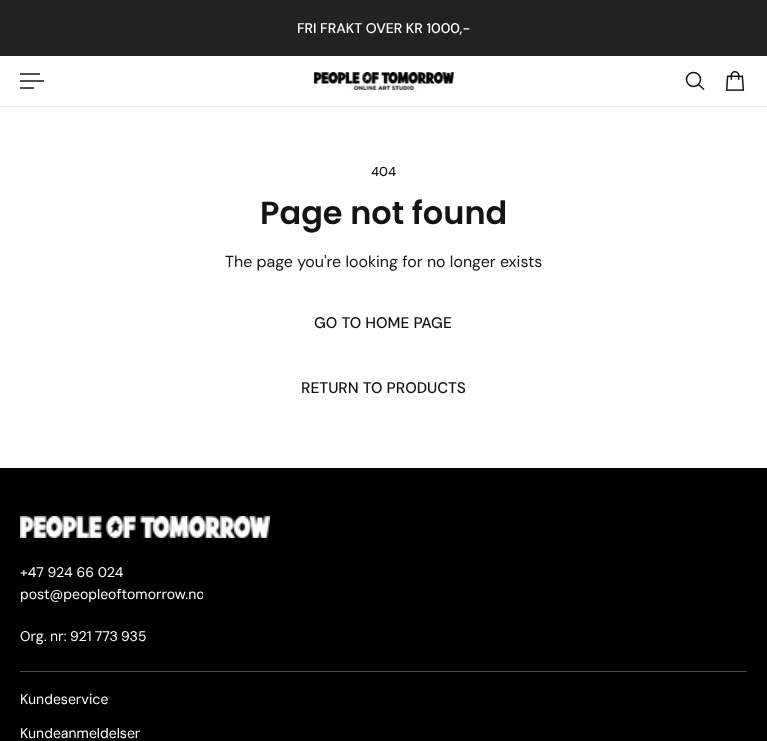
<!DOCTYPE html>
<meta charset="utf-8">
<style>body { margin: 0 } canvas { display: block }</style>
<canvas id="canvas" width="767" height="741"></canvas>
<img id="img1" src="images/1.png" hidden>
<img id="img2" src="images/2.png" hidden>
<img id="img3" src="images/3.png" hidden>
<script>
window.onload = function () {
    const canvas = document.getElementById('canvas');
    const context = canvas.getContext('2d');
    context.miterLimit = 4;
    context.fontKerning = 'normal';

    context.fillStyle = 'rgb(255, 255, 255)';
    context.fillRect(0, 0, 767, 741);
    context.fillStyle = 'rgb(34, 34, 34)';
    context.fillRect(0, 0, 767, 56);
    context.fillStyle = 'rgb(231, 231, 231)';
    context.fillRect(0, 106, 767, 1);
    context.fillStyle = 'rgb(79, 79, 80)';
    context.fillRect(20, 73, 20, 2);
    context.fillRect(20, 80, 24, 2);
    context.fillRect(20, 87, 14, 2);
    context.drawImage(document.getElementById('img1'), 313, 72, 141, 18);
    context.beginPath();
    context.arc(693.5, 79.5, 7, 0, 2 * Math.PI);
    context.strokeStyle = 'rgb(20, 20, 22)';
    context.lineWidth = 1.5;
    context.stroke();
    context.beginPath();
    context.moveTo(699, 85);
    context.lineTo(703.5, 89);
    context.lineCap = 'square';
    context.lineJoin = 'round';
    context.stroke();
    context.drawImage(document.getElementById('img2'), 725, 71, 20, 20);
    context.fillStyle = 'rgb(0, 0, 0)';
    context.fillRect(0, 468, 767, 273);
    context.drawImage(document.getElementById('img3'), 20, 516, 250, 22);
    context.fillStyle = 'rgb(73, 73, 73)';
    context.fillRect(20, 671, 727, 1);
    context.font = '500 14px DM Sans';
    context.fillStyle = 'rgb(255, 255, 255)';
    context.fillText('FRI FRAKT OVER KR 1000,-', 297, 33);
    context.font = '500 13px "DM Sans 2"';
    context.fillStyle = 'rgb(20, 20, 22)';
    context.fillText('404', 371, 176);
    context.font = '600 32px Poppins';
    context.fillText('Page not found', 260, 224);
    context.font = '16px "DM Sans 2"';
    context.fillText('The page you\'re looking for no longer exists', 225, 267);
    context.font = '500 15.4px "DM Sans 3"';
    context.fillText('GO TO HOME PAGE', 314, 328);
    context.fillText('RETURN TO PRODUCTS', 301, 393);
    context.font = '14px DM Sans';
    context.fillStyle = 'rgb(255, 255, 255)';
    context.fillText('+47 924 66 024', 20, 577);
    context.save();
    context.beginPath();
    context.rect(20, 561, 183, 86);
    context.clip();
    context.fillText('post@peopleoftomorrow.no', 20, 599);
    context.restore();
    context.wordSpacing = '-0.5px';
    context.fillText('Org. nr: 921 773 935', 20, 641);
    context.wordSpacing = '0px';
    context.fillText('Kundeservice', 20, 704);
    context.fillText('Kundeanmeldelser', 20, 738);
};
</script>
